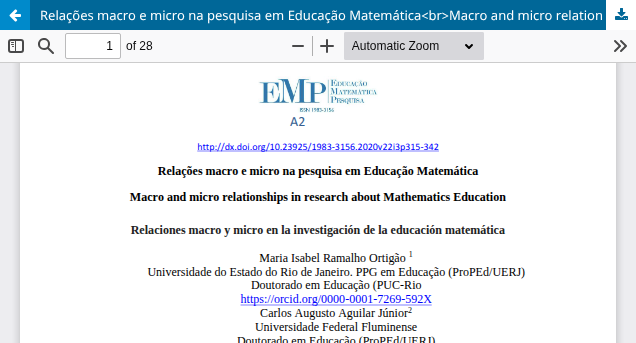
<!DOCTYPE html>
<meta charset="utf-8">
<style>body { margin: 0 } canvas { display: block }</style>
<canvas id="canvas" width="636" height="343"></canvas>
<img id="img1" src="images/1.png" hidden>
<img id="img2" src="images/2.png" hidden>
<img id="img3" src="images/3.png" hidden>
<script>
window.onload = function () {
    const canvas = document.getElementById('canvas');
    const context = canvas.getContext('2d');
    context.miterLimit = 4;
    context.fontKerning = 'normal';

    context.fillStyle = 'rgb(255, 255, 255)';
    context.fillRect(0, 0, 636, 343);
    context.fillStyle = 'rgb(0, 103, 152)';
    context.fillRect(30, 0, 576, 30);
    context.fillStyle = 'rgb(0, 138, 203)';
    context.fillRect(0, 0, 30, 30);
    context.drawImage(document.getElementById('img1'), 9, 9, 12, 13);
    context.drawImage(document.getElementById('img2'), 615, 8, 13, 12);
    context.drawImage(document.getElementById('img3'), 0, 30, 636, 313);
    context.font = '13px Noto Sans';
    context.fillStyle = 'rgb(255, 255, 255)';
    context.fillText('Relações macro e micro na pesquisa em Educação Matemática<br>Macro and micro relation', 40, 20);
};
</script>
